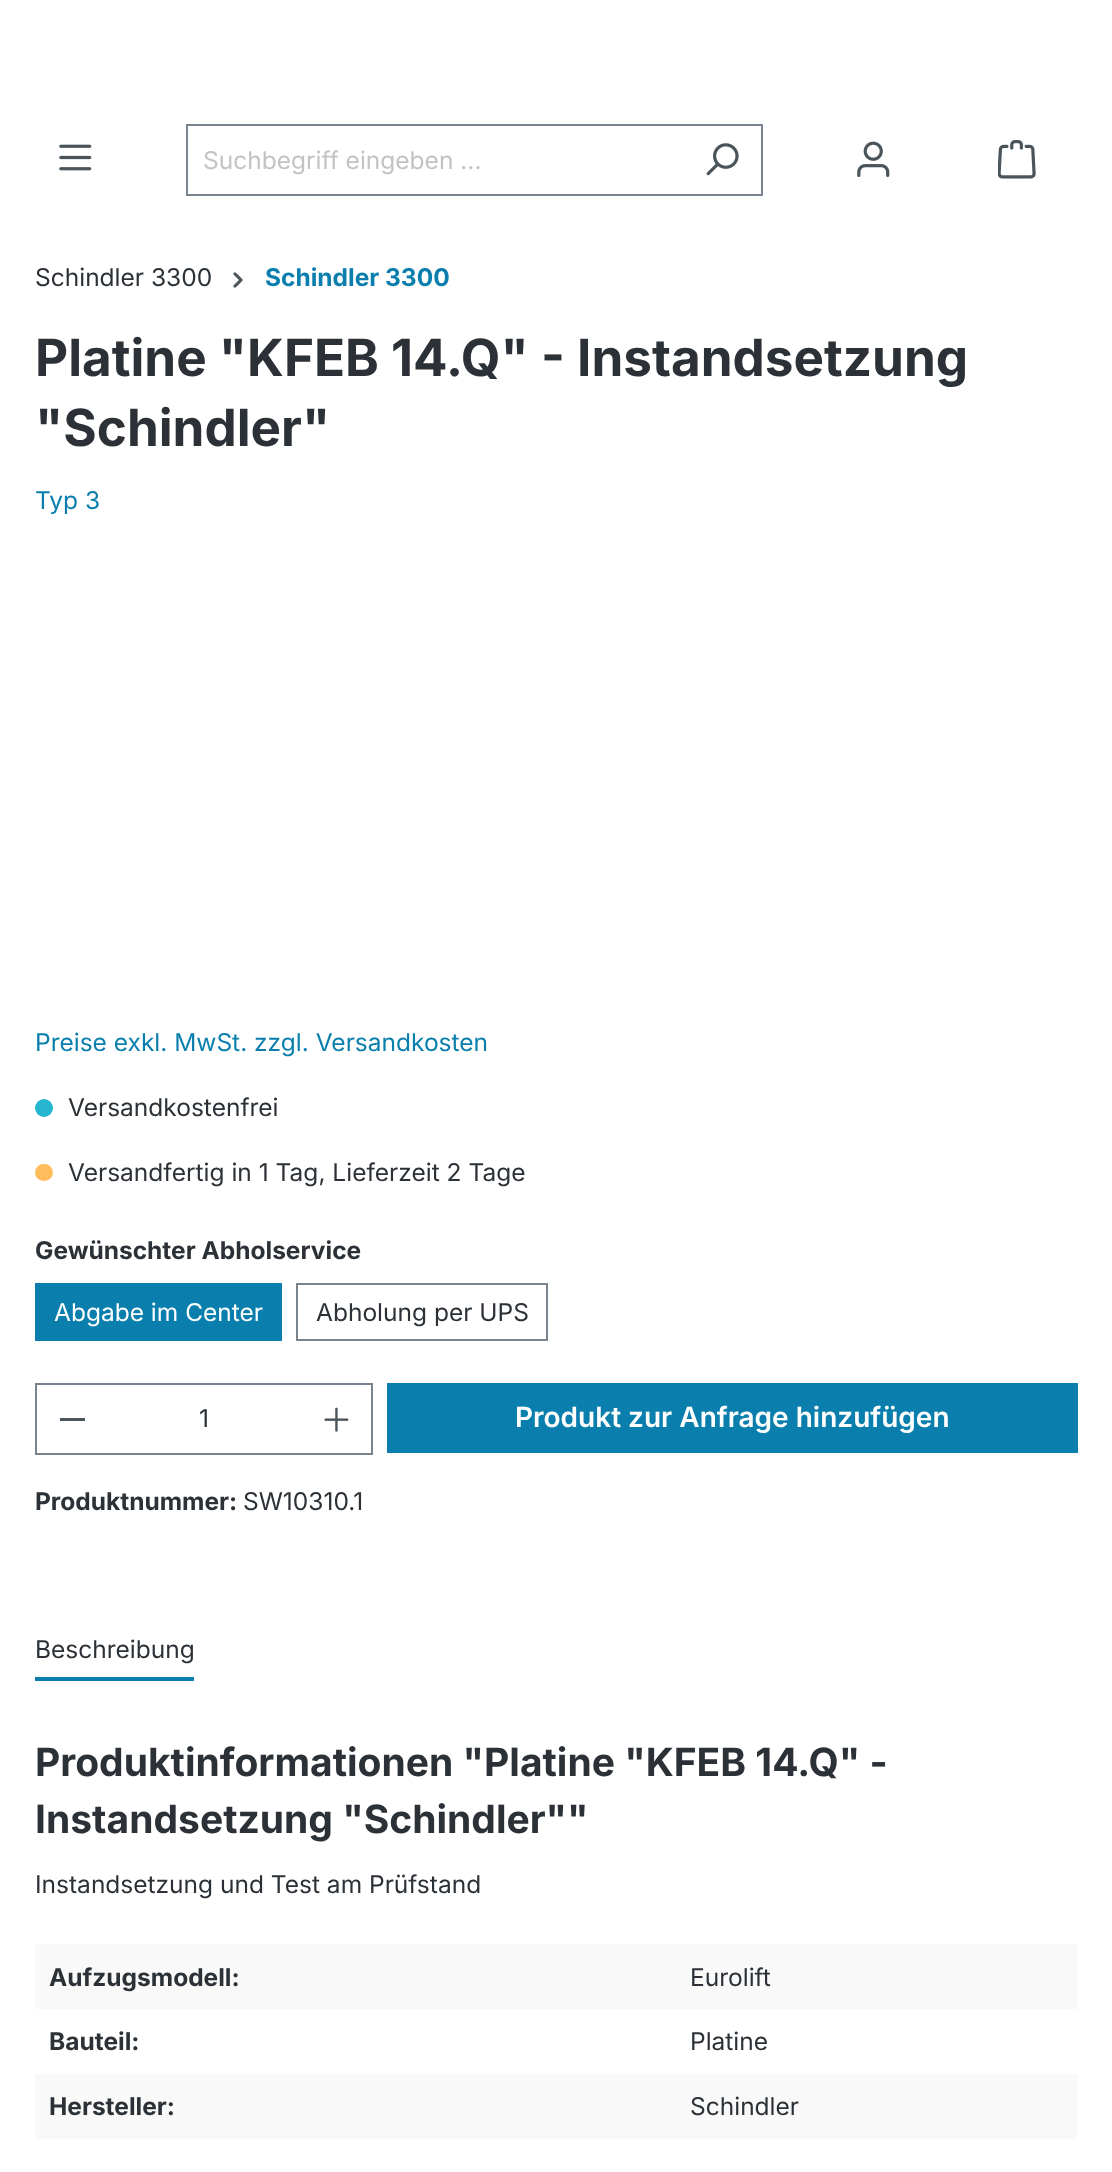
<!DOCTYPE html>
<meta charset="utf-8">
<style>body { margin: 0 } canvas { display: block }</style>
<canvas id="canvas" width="1112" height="2172"></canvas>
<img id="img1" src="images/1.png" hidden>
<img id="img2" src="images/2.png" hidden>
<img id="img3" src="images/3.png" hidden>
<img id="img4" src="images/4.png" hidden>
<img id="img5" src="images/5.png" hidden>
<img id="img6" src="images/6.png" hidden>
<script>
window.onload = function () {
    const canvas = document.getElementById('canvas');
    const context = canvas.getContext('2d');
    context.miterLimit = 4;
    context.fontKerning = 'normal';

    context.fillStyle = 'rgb(255, 255, 255)';
    context.fillRect(0, 0, 1112, 2172);
    context.drawImage(document.getElementById('img1'), 59, 144, 33, 27);
    context.fillStyle = 'rgb(121, 132, 144)';
    context.fillRect(186, 124, 577, 2);
    context.fillRect(186, 194, 497, 2);
    context.fillRect(186, 124, 2, 72);
    context.fillRect(761, 124, 2, 72);
    context.fillRect(681, 194, 82, 2);
    context.drawImage(document.getElementById('img2'), 706, 143, 33, 33);
    context.drawImage(document.getElementById('img3'), 857, 141, 33, 36);
    context.drawImage(document.getElementById('img4'), 998, 140, 38, 39);
    context.drawImage(document.getElementById('img5'), 233, 272, 10, 16);
    context.fillStyle = 'rgb(38, 182, 207)';
    context.beginPath();
    context.arc(44, 1108, 9, 0, 2 * Math.PI);
    context.fill();
    context.fillStyle = 'rgb(255, 189, 93)';
    context.beginPath();
    context.roundRect(35, 1164, 18, 17, 8.5);
    context.fill();
    context.fillStyle = 'rgb(10, 127, 173)';
    context.fillRect(35, 1283, 247, 58);
    context.strokeStyle = 'rgb(121, 132, 144)';
    context.lineWidth = 2;
    context.strokeRect(297, 1284, 250, 56);
    context.fillStyle = 'rgb(121, 132, 144)';
    context.fillRect(35, 1383, 338, 2);
    context.fillRect(35, 1453, 268, 2);
    context.fillRect(35, 1383, 2, 71);
    context.fillStyle = 'rgb(74, 84, 91)';
    context.fillRect(60, 1418, 25, 3);
    context.fillStyle = 'rgb(121, 132, 144)';
    context.fillRect(371, 1383, 2, 71);
    context.fillRect(301, 1453, 72, 2);
    context.drawImage(document.getElementById('img6'), 324, 1407, 25, 25);
    context.fillStyle = 'rgb(10, 127, 173)';
    context.fillRect(387, 1383, 691, 70);
    context.fillRect(35, 1677, 159, 4);
    context.fillStyle = 'rgb(249, 249, 249)';
    context.fillRect(35, 1944, 1043, 65);
    context.fillRect(35, 2074, 1043, 65);
    context.font = '24.5px Inter';
    context.fillStyle = 'rgb(195, 195, 195)';
    context.fillText('Suchbegriff eingeben ...', 203, 169);
    context.fillStyle = 'rgb(43, 49, 54)';
    context.fillText('Schindler 3300', 35, 286);
    context.font = 'bold 24.5px Inter';
    context.fillStyle = 'rgb(10, 127, 173)';
    context.fillText('Schindler 3300', 265, 286);
    context.font = 'bold 51.2px Inter';
    context.fillStyle = 'rgb(43, 49, 54)';
    context.fillText('Platine "KFEB 14.Q" - Instandsetzung', 35, 376);
    context.fillText('"Schindler"', 35, 446);
    context.font = '24.5px Inter';
    context.fillStyle = 'rgb(10, 127, 173)';
    context.fillText('Typ 3', 35, 509);
    context.fillText('Preise exkl. MwSt. zzgl. Versandkosten', 35, 1051);
    context.fillStyle = 'rgb(43, 49, 54)';
    context.fillText('Versandkostenfrei', 68, 1116);
    context.fillText('Versandfertig in 1 Tag, Lieferzeit 2 Tage', 68, 1181);
    context.font = 'bold 24.5px Inter';
    context.fillText('Gewünschter Abholservice', 35, 1259);
    context.font = '24.5px Inter';
    context.fillStyle = 'rgb(255, 255, 255)';
    context.fillText('Abgabe im Center', 54, 1321);
    context.fillStyle = 'rgb(43, 49, 54)';
    context.fillText('Abholung per UPS', 316, 1321);
    context.fillText('1', 199, 1427);
    context.font = '600 28px Inter';
    context.fillStyle = 'rgb(255, 255, 255)';
    context.fillText('Produkt zur Anfrage hinzufügen', 515, 1427);
    context.font = 'bold 24.5px Inter';
    context.fillStyle = 'rgb(43, 49, 54)';
    context.fillText('Produktnummer:', 35, 1510);
    context.font = '24.5px Inter';
    context.fillText('SW10310.1', 243, 1510);
    context.fillText('Beschreibung', 35, 1658);
    context.font = 'bold 39px Inter';
    context.fillText('Produktinformationen "Platine "KFEB 14.Q" -', 35, 1776);
    context.fillText('Instandsetzung "Schindler""', 35, 1833);
    context.font = '24.5px Inter';
    context.fillText('Instandsetzung und Test am Prüfstand', 35, 1893);
    context.font = 'bold 24.5px Inter';
    context.fillText('Aufzugsmodell:', 49, 1986);
    context.font = '24.5px Inter';
    context.fillText('Eurolift', 690, 1986);
    context.font = 'bold 24.5px Inter';
    context.fillText('Bauteil:', 49, 2050);
    context.font = '24.5px Inter';
    context.fillText('Platine', 690, 2050);
    context.font = 'bold 24.5px Inter';
    context.fillText('Hersteller:', 49, 2115);
    context.font = '24.5px Inter';
    context.fillText('Schindler', 690, 2115);
};
</script>
